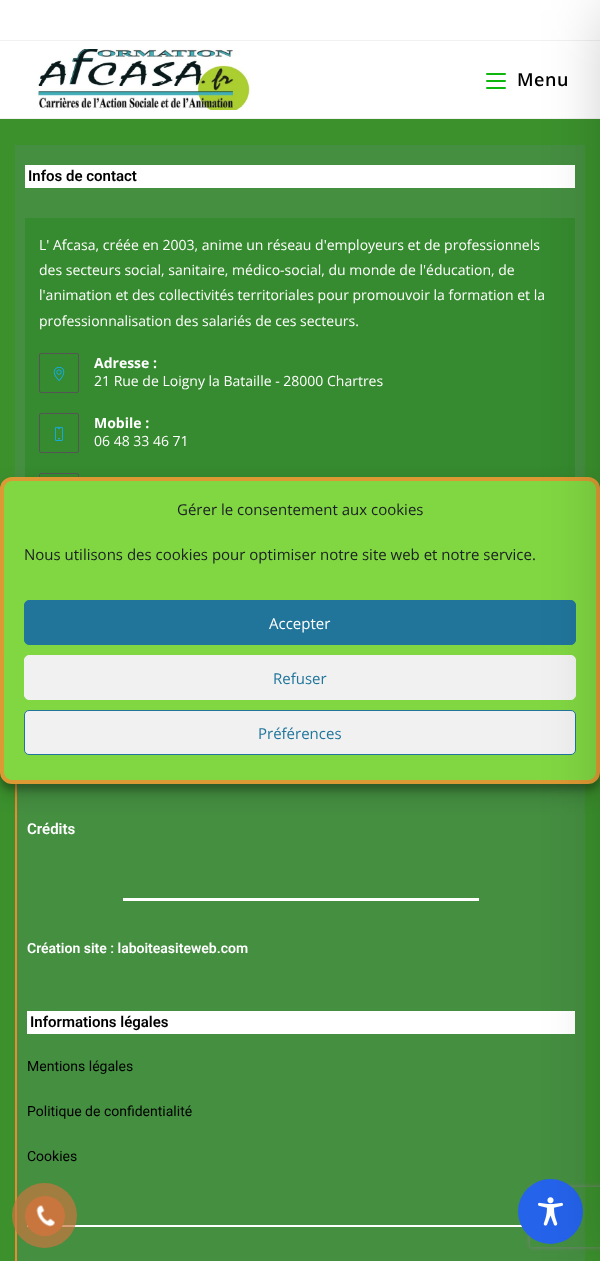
<!DOCTYPE html>
<meta charset="utf-8">
<style>body { margin: 0 } canvas { display: block }</style>
<canvas id="canvas" width="600" height="1261"></canvas>
<img id="img1" src="images/5.png" hidden>
<img id="img2" src="images/1.png" hidden>
<img id="img3" src="images/2.png" hidden>
<img id="img4" src="images/3.png" hidden>
<img id="img5" src="images/4.png" hidden>
<script>
window.onload = function () {
    const canvas = document.getElementById('canvas');
    const context = canvas.getContext('2d');
    context.miterLimit = 4;
    context.fontKerning = 'normal';

    context.fillStyle = 'rgb(255, 255, 255)';
    context.fillRect(0, 0, 600, 1261);
    context.fillStyle = 'rgb(241, 241, 241)';
    context.fillRect(0, 40, 600, 1);
    context.fillRect(0, 118, 600, 1);
    context.fillStyle = 'rgb(60, 145, 45)';
    context.fillRect(0, 119, 600, 1142);
    context.fillStyle = 'rgb(69, 143, 65)';
    context.fillRect(15, 145, 570, 1116);
    context.fillStyle = 'rgb(255, 255, 255)';
    context.fillRect(25, 165, 550, 23);
    context.fillStyle = 'rgb(54, 138, 47)';
    context.fillRect(25, 218, 550, 259);
    context.fillStyle = 'rgb(255, 255, 255)';
    context.fillRect(27, 1011, 548, 23);
    context.fillRect(27, 1225, 495, 2);
    context.beginPath();
    context.roundRect(39.5, 473.5, 39, 39, 1.5);
    context.strokeStyle = 'rgb(85, 85, 85)';
    context.stroke();
    context.fillStyle = 'rgb(234, 138, 53)';
    context.fillRect(15, 784, 2, 477);
    context.fillStyle = 'rgba(0, 0, 0, 0.23)';
    context.filter = 'blur(3px)';
    context.beginPath();
    context.roundRect(0, 483, 600, 307, 12);
    context.fill();
    context.filter = 'none';
    context.fillStyle = 'rgba(0, 0, 0, 0.19)';
    context.filter = 'blur(10px)';
    context.beginPath();
    context.roundRect(0, 487, 600, 307, 12);
    context.fill();
    context.filter = 'none';
    context.fillStyle = 'rgb(129, 215, 66)';
    context.beginPath();
    context.roundRect(2, 479, 596, 303, 10);
    context.fill();
    context.strokeStyle = 'rgb(221, 153, 51)';
    context.lineWidth = 4;
    context.stroke();
    context.fillStyle = 'rgb(33, 117, 155)';
    context.beginPath();
    context.roundRect(24.5, 600.5, 551, 44, 4.5);
    context.fill();
    context.strokeStyle = 'rgb(33, 117, 155)';
    context.lineWidth = 1;
    context.stroke();
    context.fillStyle = 'rgb(241, 241, 241)';
    context.beginPath();
    context.roundRect(24.5, 655.5, 551, 44, 4.5);
    context.fill();
    context.strokeStyle = 'rgb(241, 241, 241)';
    context.stroke();
    context.beginPath();
    context.roundRect(24.5, 710.5, 551, 44, 4.5);
    context.fill();
    context.strokeStyle = 'rgb(33, 117, 155)';
    context.stroke();
    context.save();
    context.beginPath();
    context.moveTo(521, 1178);
    context.lineTo(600, 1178);
    context.lineTo(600, 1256);
    context.lineTo(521, 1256);
    context.closePath();
    context.moveTo(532, 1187);
    context.lineTo(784, 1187);
    context.bezierCurveTo(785, 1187, 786, 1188, 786, 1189);
    context.lineTo(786, 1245);
    context.bezierCurveTo(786, 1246, 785, 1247, 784, 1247);
    context.lineTo(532, 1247);
    context.bezierCurveTo(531, 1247, 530, 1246, 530, 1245);
    context.lineTo(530, 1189);
    context.bezierCurveTo(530, 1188, 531, 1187, 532, 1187);
    context.closePath();
    context.clip('evenodd');
    context.fillStyle = 'rgb(128, 128, 128)';
    context.filter = 'blur(2.5px)';
    context.beginPath();
    context.roundRect(530, 1187, 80, 60, 2);
    context.fill();
    context.filter = 'none';
    context.restore();
    context.fillStyle = 'rgb(37, 99, 235)';
    context.beginPath();
    context.arc(550.5, 1211.5, 32.5, 0, 2 * Math.PI);
    context.fill();
    context.drawImage(document.getElementById('img1'), 538, 1197, 25, 29);
    context.fillStyle = 'rgba(0, 0, 0, 0.2)';
    context.filter = 'blur(30px)';
    context.beginPath();
    context.rect(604, 10, 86, 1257);
    context.fill();
    context.filter = 'none';
    context.drawImage(document.getElementById('img2'), 37, 49, 214, 61);
    context.fillStyle = 'rgb(13, 183, 11)';
    context.beginPath();
    context.roundRect(486, 87, 20, 2, 1);
    context.fill();
    context.beginPath();
    context.roundRect(486, 73, 20, 2, 1);
    context.fill();
    context.beginPath();
    context.roundRect(486, 80, 20, 2, 1);
    context.fill();
    context.beginPath();
    context.roundRect(39.5, 353.5, 39, 39, 1.5);
    context.strokeStyle = 'rgb(85, 85, 85)';
    context.stroke();
    context.drawImage(document.getElementById('img3'), 53, 366, 12, 15);
    context.beginPath();
    context.roundRect(39.5, 413.5, 39, 39, 1.5);
    context.stroke();
    context.drawImage(document.getElementById('img4'), 55, 426, 8, 15);
    context.fillStyle = 'rgb(255, 255, 255)';
    context.fillRect(123, 898, 356, 3);
    context.fillStyle = 'rgba(201, 118, 62, 0.7)';
    context.beginPath();
    context.arc(44.5, 1215.5, 32.5, 0, 2 * Math.PI);
    context.fill();
    context.fillStyle = 'rgb(201, 118, 62)';
    context.beginPath();
    context.arc(45, 1216, 20, 0, 2 * Math.PI);
    context.fill();
    context.drawImage(document.getElementById('img5'), 36, 1205, 19, 22);
    context.letterSpacing = '0.5px';
    context.font = '600 18px Open Sans';
    context.fillStyle = 'rgb(0, 0, 0)';
    context.fillText('Menu', 517, 86);
    context.letterSpacing = '0px';
    context.font = '600 15px Roboto';
    context.fillText('Infos de contact', 28, 181);
    context.font = '14px Open Sans';
    context.fillStyle = 'rgb(255, 255, 255)';
    context.fillText('L\' Afcasa, créée en 2003, anime un réseau d\'employeurs et de professionnels', 39, 250);
    context.fillText('des secteurs social, sanitaire, médico-social, du monde de l\'éducation, de', 39, 275);
    context.fillText('l\'animation et des collectivités territoriales pour promouvoir la formation et la', 39, 300);
    context.fillText('professionnalisation des salariés de ces secteurs.', 39, 326);
    context.font = 'bold 14px Open Sans';
    context.fillText('Adresse :', 94, 368);
    context.font = '14px Open Sans';
    context.fillText('21 Rue de Loigny la Bataille - 28000 Chartres', 94, 386);
    context.font = 'bold 14px Open Sans';
    context.fillText('Mobile :', 94, 428);
    context.font = '14px Open Sans';
    context.fillText('06 48 33 46 71', 94, 446);
    context.font = '600 15px Roboto';
    context.fillText('Crédits', 27, 834);
    context.font = '600 14px Roboto';
    context.fillText('Création site : laboiteasiteweb.com', 27, 953);
    context.font = '600 15px Roboto';
    context.fillStyle = 'rgb(0, 0, 0)';
    context.fillText('Informations légales', 30, 1027);
    context.font = '14px Roboto';
    context.fillText('Mentions légales', 27, 1071);
    context.fillText('Politique de confidentialité', 27, 1116);
    context.fillText('Cookies', 27, 1161);
    context.font = '15px Open Sans';
    context.fillStyle = 'rgb(25, 30, 35)';
    context.fillText('Gérer le consentement aux cookies', 177, 515);
    context.fillText('Nous utilisons des cookies pour optimiser notre site web et notre service.', 24, 560);
    context.fillStyle = 'rgb(255, 255, 255)';
    context.fillText('Accepter', 269, 629);
    context.fillStyle = 'rgb(33, 117, 155)';
    context.fillText('Refuser', 273, 684);
    context.fillText('Préférences', 258, 739);
};
</script>
